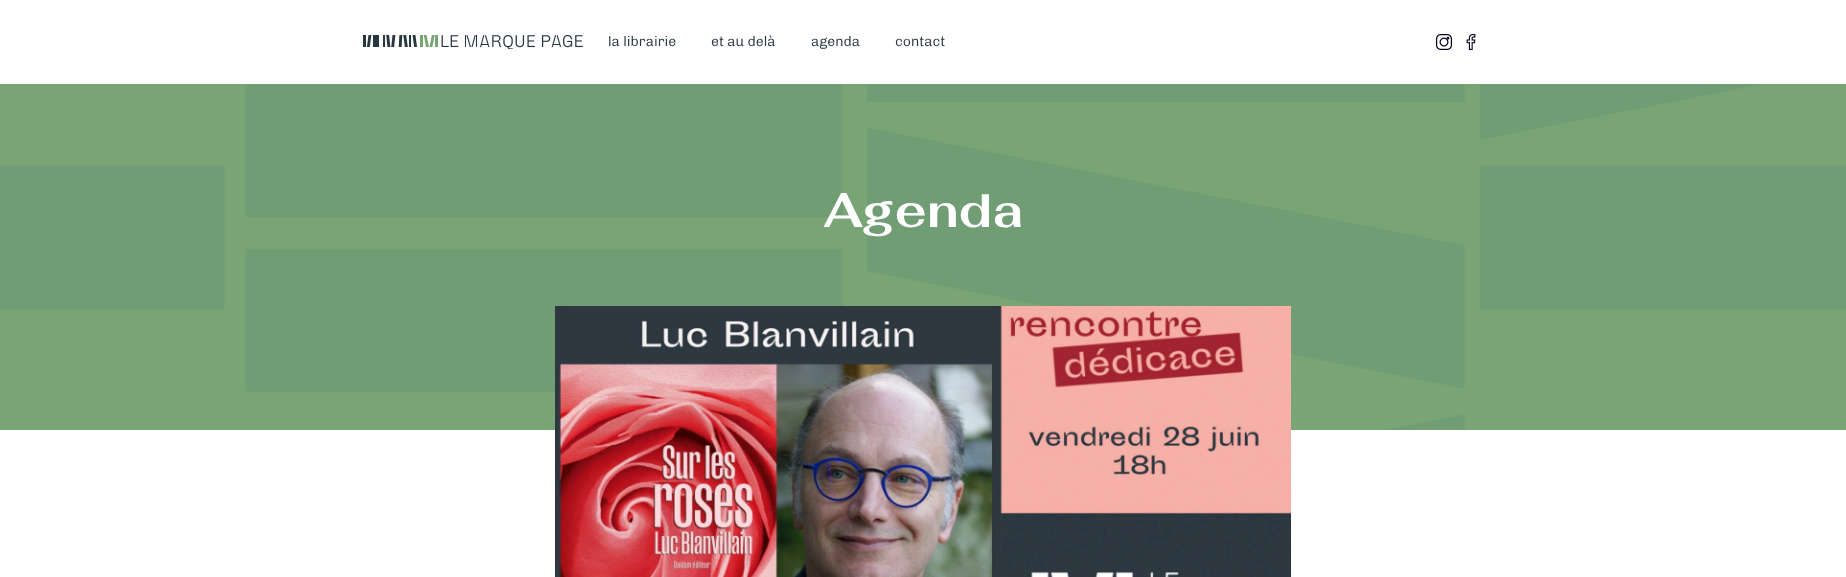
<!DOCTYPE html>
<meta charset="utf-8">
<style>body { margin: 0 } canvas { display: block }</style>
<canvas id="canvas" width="1846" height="577"></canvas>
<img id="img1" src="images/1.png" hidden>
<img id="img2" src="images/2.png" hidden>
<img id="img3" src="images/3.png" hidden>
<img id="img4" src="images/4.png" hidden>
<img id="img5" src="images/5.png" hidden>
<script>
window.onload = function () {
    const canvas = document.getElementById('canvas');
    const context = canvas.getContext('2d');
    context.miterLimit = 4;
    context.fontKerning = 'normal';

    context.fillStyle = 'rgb(255, 255, 255)';
    context.fillRect(0, 0, 1846, 577);
    context.drawImage(document.getElementById('img1'), 363, 35, 220, 14);
    context.drawImage(document.getElementById('img2'), 1436, 34, 16, 16);
    context.drawImage(document.getElementById('img3'), 1466, 34, 10, 16);
    context.fillStyle = 'rgb(121, 164, 117)';
    context.fillRect(0, 84, 1846, 346);
    context.drawImage(document.getElementById('img4'), 0, 84, 1846, 346);
    context.drawImage(document.getElementById('img5'), 555, 306, 736, 271);
    context.font = '300 14px Chivo';
    context.fillStyle = 'rgb(40, 54, 62)';
    context.fillText('la librairie', 608, 46);
    context.fillText('et au delà', 711, 46);
    context.fillText('agenda', 811, 46);
    context.fillText('contact', 895, 46);
    context.font = 'bold 48px Fahkwang';
    context.fillStyle = 'rgb(255, 255, 255)';
    context.fillText('Agenda', 823, 227);
};
</script>
